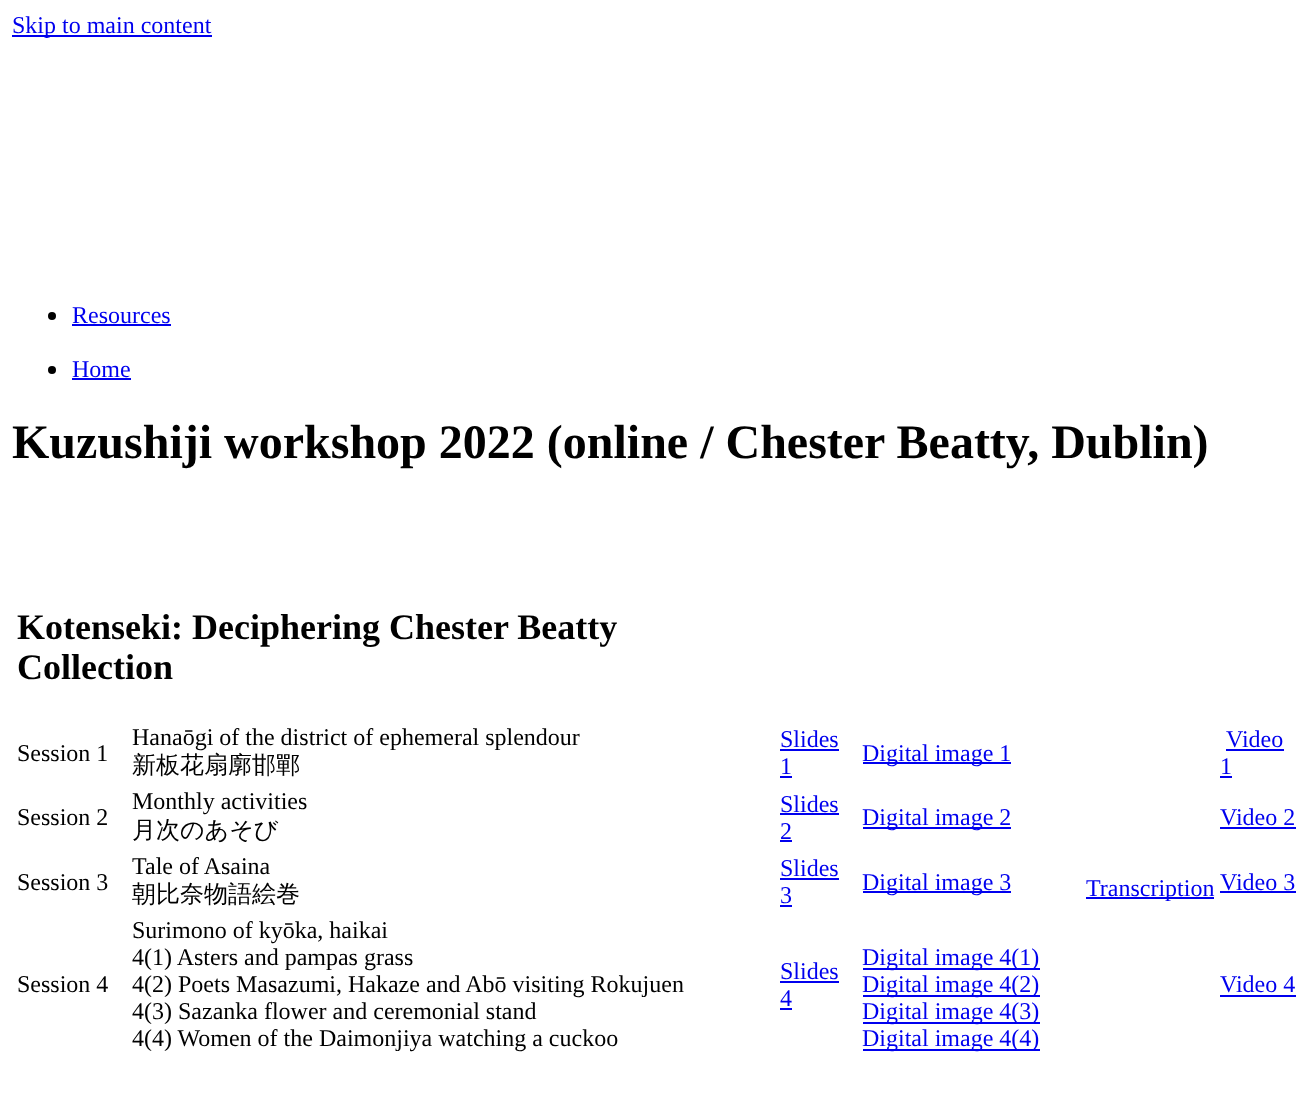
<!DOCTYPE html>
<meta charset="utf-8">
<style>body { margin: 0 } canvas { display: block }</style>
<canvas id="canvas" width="1316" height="1093"></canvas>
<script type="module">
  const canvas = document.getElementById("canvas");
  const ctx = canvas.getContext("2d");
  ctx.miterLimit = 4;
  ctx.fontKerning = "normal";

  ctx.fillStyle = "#ffffff";
  ctx.fillRect(0, 0, 1316, 1093);
  ctx.fillStyle = "#0000ee";
  ctx.fillRect(12, 35, 200, 2);
  ctx.font = "24px Liberation Serif";
  ctx.fillText("Skip to main content", 12, 33);
  ctx.fillStyle = "#000000";
  ctx.beginPath();
  ctx.arc(52, 316, 4, 0, Math.PI * 2);
  ctx.fill();
  ctx.fillStyle = "#0000ee";
  ctx.fillText("Resources", 72, 323);
  ctx.fillRect(72, 324, 99, 2);
  ctx.fillStyle = "#000000";
  ctx.beginPath();
  ctx.arc(52, 370, 4, 0, Math.PI * 2);
  ctx.fill();
  ctx.fillStyle = "#0000ee";
  ctx.fillText("Home", 72, 377);
  ctx.fillRect(72, 378, 59, 2);
  ctx.font = "bold 48px Liberation Serif";
  ctx.fillStyle = "#000000";
  ctx.fillText("Kuzushiji workshop 2022 (online / Chester Beatty, Dublin)", 12, 458);
  ctx.font = "bold 36px Liberation Serif";
  ctx.fillText("Kotenseki: Deciphering Chester Beatty", 17, 639);
  ctx.fillText("Collection", 17, 679);
  ctx.font = "24px Liberation Serif";
  ctx.fillText("Session 1", 17, 761);
  ctx.fillText("Hanaōgi of the district of ephemeral splendour", 132, 745);
  ctx.font = "500 24px WenQuanYi Zen Hei";
  ctx.fillText("新板花扇廓邯鄲", 132, 773);
  ctx.font = "24px Liberation Serif";
  ctx.fillStyle = "#0000ee";
  ctx.fillText("Slides", 780, 747);
  ctx.fillRect(780, 749, 59, 2);
  ctx.fillText("1", 780, 774);
  ctx.fillRect(780, 776, 12, 2);
  ctx.fillRect(863, 762, 148, 2);
  ctx.fillText("Digital image 1", 862, 761);
  ctx.fillText("Video", 1226, 747);
  ctx.fillRect(1226, 749, 58, 2);
  ctx.fillText("1", 1220, 774);
  ctx.fillRect(1220, 776, 12, 2);
  ctx.fillRect(1086, 897, 128, 2);
  ctx.fillText("Transcription", 1086, 896);
  ctx.fillStyle = "#000000";
  ctx.fillText("Session 2", 17, 825);
  ctx.fillText("Monthly activities", 132, 809);
  ctx.font = "500 24px WenQuanYi Zen Hei";
  ctx.fillText("月次のあそび", 132, 838);
  ctx.font = "24px Liberation Serif";
  ctx.fillStyle = "#0000ee";
  ctx.fillText("Slides", 780, 812);
  ctx.fillRect(780, 813, 59, 2);
  ctx.fillText("2", 780, 839);
  ctx.fillRect(780, 840, 12, 2);
  ctx.fillRect(863, 827, 148, 2);
  ctx.fillText("Digital image 2", 862, 825);
  ctx.fillText("Video 2", 1220, 825);
  ctx.fillRect(1220, 827, 76, 2);
  ctx.fillStyle = "#000000";
  ctx.fillText("Session 3", 17, 890);
  ctx.fillText("Tale of Asaina", 132, 874);
  ctx.font = "500 24px WenQuanYi Zen Hei";
  ctx.fillText("朝比奈物語絵巻", 132, 902);
  ctx.font = "24px Liberation Serif";
  ctx.fillStyle = "#0000ee";
  ctx.fillText("Slides", 780, 876);
  ctx.fillRect(780, 878, 59, 2);
  ctx.fillText("3", 780, 903);
  ctx.fillRect(780, 905, 12, 2);
  ctx.fillRect(863, 891, 148, 2);
  ctx.fillText("Digital image 3", 862, 890);
  ctx.fillText("Video 3", 1220, 890);
  ctx.fillRect(1220, 891, 76, 2);
  ctx.fillStyle = "#000000";
  ctx.fillText("Session 4", 17, 992);
  ctx.fillText("Surimono of kyōka, haikai", 132, 938);
  ctx.fillText("4(1) Asters and pampas grass", 132, 965);
  ctx.fillText("4(2) Poets Masazumi, Hakaze and Abō visiting Rokujuen", 132, 992);
  ctx.fillText("4(3) Sazanka flower and ceremonial stand", 132, 1019);
  ctx.fillText("4(4) Women of the Daimonjiya watching a cuckoo", 132, 1046);
  ctx.fillStyle = "#0000ee";
  ctx.fillText("Slides", 780, 979);
  ctx.fillRect(780, 981, 59, 2);
  ctx.fillText("4", 780, 1006);
  ctx.fillRect(780, 1008, 12, 2);
  ctx.fillRect(863, 968, 177, 2);
  ctx.fillText("Digital image 4(1)", 862, 965);
  ctx.fillRect(863, 995, 177, 2);
  ctx.fillText("Digital image 4(2)", 862, 992);
  ctx.fillRect(863, 1022, 177, 2);
  ctx.fillText("Digital image 4(3)", 862, 1019);
  ctx.fillRect(863, 1049, 177, 2);
  ctx.fillText("Digital image 4(4)", 862, 1046);
  ctx.fillText("Video 4", 1220, 992);
  ctx.fillRect(1220, 995, 76, 2);
</script>
